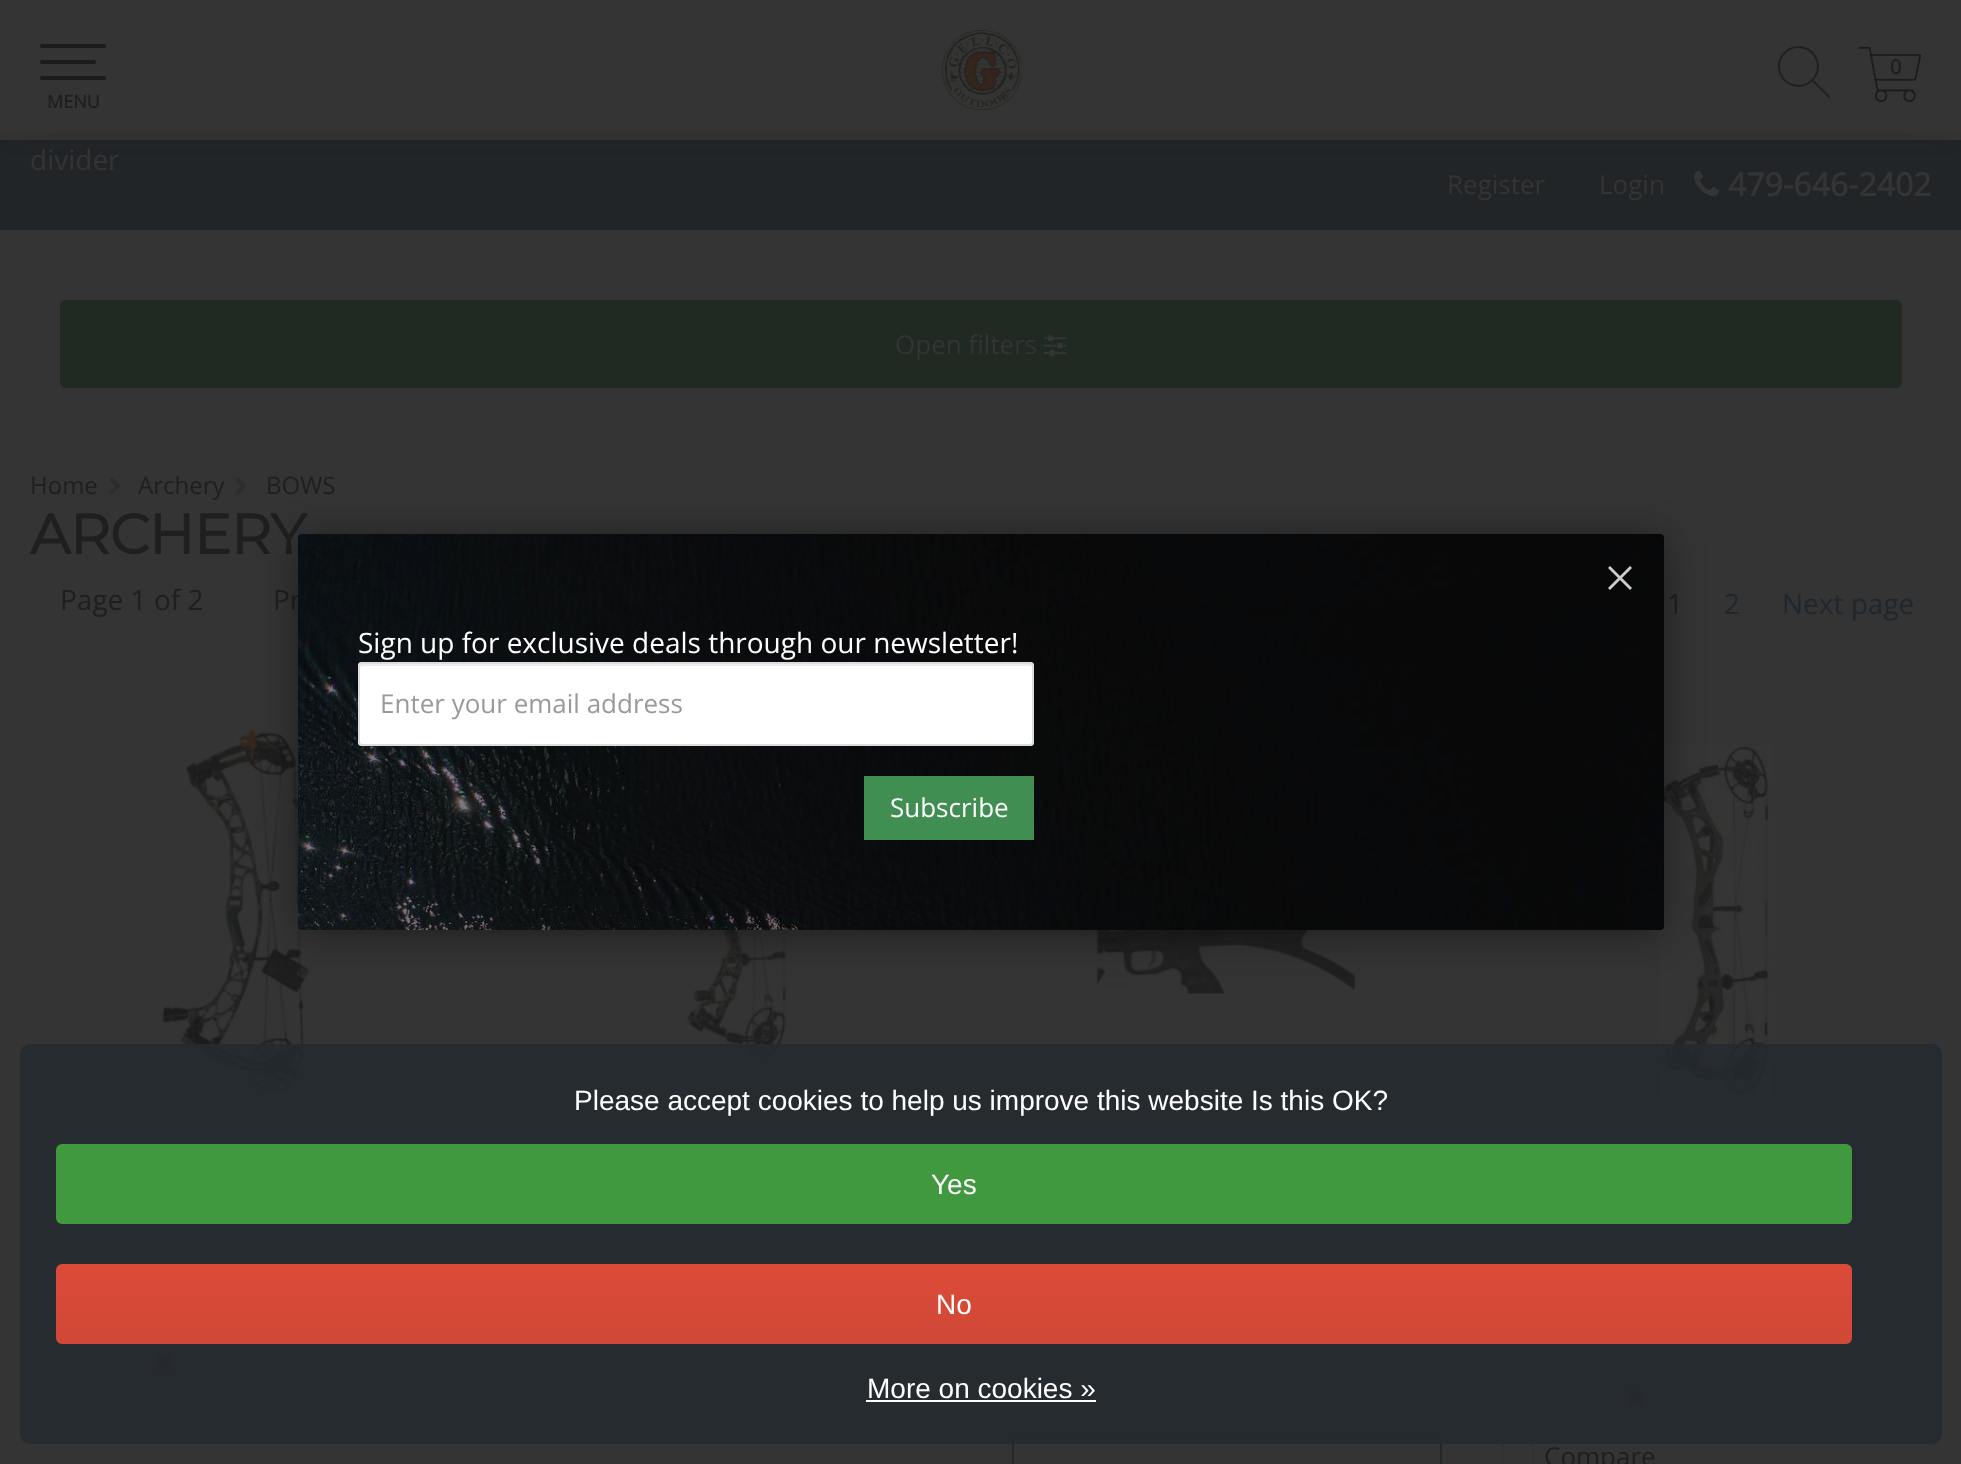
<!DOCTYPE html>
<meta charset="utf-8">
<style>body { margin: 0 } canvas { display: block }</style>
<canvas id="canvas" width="1961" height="1464"></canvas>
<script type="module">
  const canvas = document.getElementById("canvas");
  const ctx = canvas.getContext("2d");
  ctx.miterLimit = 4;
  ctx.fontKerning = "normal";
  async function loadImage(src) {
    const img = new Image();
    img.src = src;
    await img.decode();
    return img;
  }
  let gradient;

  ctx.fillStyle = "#343434";
  ctx.fillRect(0, 0, 1961, 1464);
  ctx.fillStyle = "#222528";
  ctx.fillRect(0, 140, 1961, 90);
  ctx.fillStyle = "#1b1b1b";
  ctx.filter = "blur(20px)";
  ctx.beginPath();
  ctx.rect(12, 12, 1938, 96);
  ctx.fill();
  ctx.filter = "none";
  ctx.fillStyle = "#343434";
  ctx.fillRect(0, 0, 1961, 133);
  ctx.drawImage(await loadImage("img1.png"), 941, 30, 81, 80);
  ctx.drawImage(await loadImage("img2.png"), 1778, 46, 52, 52);
  ctx.drawImage(await loadImage("img3.png"), 1858, 46, 64, 56);
  ctx.font = "bold 20px Open Sans";
  ctx.fillStyle = "#1f1f1f";
  ctx.fillText("0", 1890, 74);
  ctx.fillStyle = "#1c1c1c";
  ctx.beginPath();
  ctx.roundRect(40, 44, 66, 4, 2);
  ctx.fill();
  ctx.beginPath();
  ctx.roundRect(40, 60, 56, 4, 2);
  ctx.fill();
  ctx.beginPath();
  ctx.roundRect(40, 76, 66, 4, 2);
  ctx.fill();
  ctx.font = "bold 18px Open Sans";
  ctx.fillStyle = "#1f1f1f";
  ctx.fillText("MENU", 47, 108);
  ctx.font = "28px Open Sans";
  ctx.fillStyle = "#343434";
  ctx.fillText("divider", 30, 170);
  ctx.font = "26px Open Sans";
  ctx.fillText("Register", 1447, 194);
  ctx.fillText("Login", 1599, 194);
  ctx.drawImage(await loadImage("img4.png"), 1694, 170, 26, 26);
  ctx.font = "bold 32px Open Sans";
  ctx.fillText("479-646-2402", 1728, 196);
  ctx.fillStyle = "#212923";
  ctx.beginPath();
  ctx.roundRect(60, 300, 1842, 88, 6);
  ctx.fill();
  ctx.font = "26px Open Sans";
  ctx.fillStyle = "#343434";
  ctx.fillText("Open filters", 895, 354);
  ctx.drawImage(await loadImage("img5.png"), 1044, 335, 23, 21);
  ctx.font = "24px Open Sans";
  ctx.fillStyle = "#1f1f1f";
  ctx.fillText("Home", 30, 494);
  ctx.drawImage(await loadImage("img6.png"), 109, 477, 12, 18);
  ctx.fillText("Archery", 138, 494);
  ctx.drawImage(await loadImage("img6.png"), 235, 477, 12, 18);
  ctx.fillText("BOWS", 266, 494);
  ctx.letterSpacing = "-0.5px";
  ctx.font = "bold 56px Montserrat";
  ctx.fillText("ARCHERY", 30, 554);
  ctx.letterSpacing = "0px";
  ctx.font = "28px Open Sans";
  ctx.fillText("Page 1 of 2", 60, 610);
  ctx.fillText("Pr", 273, 610);
  ctx.fillText("1", 1667, 614);
  ctx.fillStyle = "#20272d";
  ctx.fillText("2", 1724, 614);
  ctx.fillText("Next page", 1782, 614);
  ctx.drawImage(await loadImage("img7.png"), 162, 729, 148, 365);
  ctx.drawImage(await loadImage("img8.png"), 150, 1254, 26, 10);
  ctx.drawImage(await loadImage("img8.png"), 184, 1254, 26, 10);
  ctx.drawImage(await loadImage("img8.png"), 218, 1254, 26, 10);
  ctx.drawImage(await loadImage("img8.png"), 252, 1254, 26, 10);
  ctx.drawImage(await loadImage("img8.png"), 286, 1254, 26, 10);
  ctx.drawImage(await loadImage("img9.png"), 155, 1354, 17, 17);
  ctx.beginPath();
  ctx.roundRect(31, 1405, 30, 30, 3);
  ctx.strokeStyle = "#313131";
  ctx.lineWidth = 2;
  ctx.stroke();
  ctx.drawImage(await loadImage("img10.png"), 686, 930, 100, 129);
  ctx.drawImage(await loadImage("img8.png"), 640, 1254, 26, 10);
  ctx.drawImage(await loadImage("img8.png"), 674, 1254, 26, 10);
  ctx.drawImage(await loadImage("img8.png"), 708, 1254, 26, 10);
  ctx.drawImage(await loadImage("img8.png"), 742, 1254, 26, 10);
  ctx.drawImage(await loadImage("img8.png"), 776, 1254, 26, 10);
  ctx.drawImage(await loadImage("img11.png"), 667, 1353, 22, 17);
  ctx.beginPath();
  ctx.roundRect(521, 1405, 30, 30, 3);
  ctx.stroke();
  ctx.drawImage(await loadImage("img12.png"), 1096, 930, 260, 64);
  ctx.drawImage(await loadImage("img13.png"), 1132, 1224, 26, 20);
  ctx.drawImage(await loadImage("img13.png"), 1166, 1224, 26, 20);
  ctx.drawImage(await loadImage("img13.png"), 1200, 1224, 26, 20);
  ctx.drawImage(await loadImage("img13.png"), 1234, 1224, 26, 20);
  ctx.drawImage(await loadImage("img13.png"), 1268, 1224, 26, 20);
  ctx.beginPath();
  ctx.roundRect(1013, 1369, 30, 30, 3);
  ctx.stroke();
  ctx.beginPath();
  ctx.roundRect(1013, 1439, 428, 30, 3);
  ctx.strokeStyle = "#212923";
  ctx.stroke();
  ctx.drawImage(await loadImage("img14.png"), 1659, 745, 113, 352);
  ctx.drawImage(await loadImage("img9.png"), 1627, 1390, 17, 17);
  ctx.beginPath();
  ctx.roundRect(1503, 1441, 30, 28, 3);
  ctx.strokeStyle = "#313131";
  ctx.stroke();
  ctx.font = "26px Open Sans";
  ctx.fillStyle = "#1f1f1f";
  ctx.fillText("Compare", 1544, 1466);
  ctx.fillStyle = "rgba(36, 42, 48, 0.85)";
  ctx.beginPath();
  ctx.roundRect(20, 1044, 1922, 400, 10);
  ctx.fill();
  ctx.font = "28px Liberation Sans";
  ctx.fillStyle = "#ffffff";
  ctx.fillText("Please accept cookies to help us improve this website Is this OK?", 574, 1110);
  ctx.fillStyle = "#40983f";
  ctx.beginPath();
  ctx.roundRect(56, 1144, 1796, 80, 6);
  ctx.fill();
  ctx.fillStyle = "#ffffff";
  ctx.fillText("Yes", 931, 1194);
  gradient = ctx.createLinearGradient(954, 1264, 954, 1344);
  gradient.addColorStop(0, "#dc4a38");
  gradient.addColorStop(1, "#d14836");
  ctx.fillStyle = gradient;
  ctx.beginPath();
  ctx.roundRect(56, 1264, 1796, 80, 6);
  ctx.fill();
  ctx.fillStyle = "#ffffff";
  ctx.fillText("No", 936, 1314);
  ctx.fillText("More on cookies »", 867, 1398);
  ctx.fillRect(866, 1400, 230, 2);
  ctx.fillStyle = "rgba(0, 0, 0, 0.5)";
  ctx.filter = "blur(20px)";
  ctx.beginPath();
  ctx.rect(302, 542, 1358, 388);
  ctx.fill();
  ctx.filter = "none";
  ctx.drawImage(await loadImage("img16.png"), 298, 534, 1366, 396);
  ctx.beginPath();
  ctx.roundRect(298, 534, 1366, 396, 4);
  ctx.fill();
  ctx.drawImage(await loadImage("img15.png"), 1608, 566, 24, 24);
  ctx.font = "28px Open Sans";
  ctx.fillStyle = "#ffffff";
  ctx.fillText("Sign up for exclusive deals through our newsletter!", 358, 653);
  ctx.beginPath();
  ctx.roundRect(358, 662, 676, 84, 4);
  ctx.fill();
  ctx.fillStyle = "#ececec";
  ctx.beginPath();
  ctx.moveTo(362, 666);
  ctx.lineTo(1030, 666);
  ctx.bezierCurveTo(1031, 666, 1032, 667, 1032, 668);
  ctx.lineTo(1032, 666);
  ctx.bezierCurveTo(1032, 665, 1031, 664, 1030, 664);
  ctx.lineTo(362, 664);
  ctx.bezierCurveTo(361, 664, 360, 665, 360, 666);
  ctx.lineTo(360, 668);
  ctx.bezierCurveTo(360, 667, 361, 666, 362, 666);
  ctx.closePath();
  ctx.fill();
  ctx.beginPath();
  ctx.roundRect(359, 663, 674, 82, 3);
  ctx.strokeStyle = "#dddddd";
  ctx.stroke();
  ctx.font = "26px Open Sans";
  ctx.fillStyle = "#999999";
  ctx.fillText("Enter your email address", 380, 713);
  ctx.fillStyle = "#408e51";
  ctx.fillRect(864, 776, 170, 64);
  ctx.fillStyle = "#ffffff";
  ctx.fillText("Subscribe", 890, 817);
</script>
